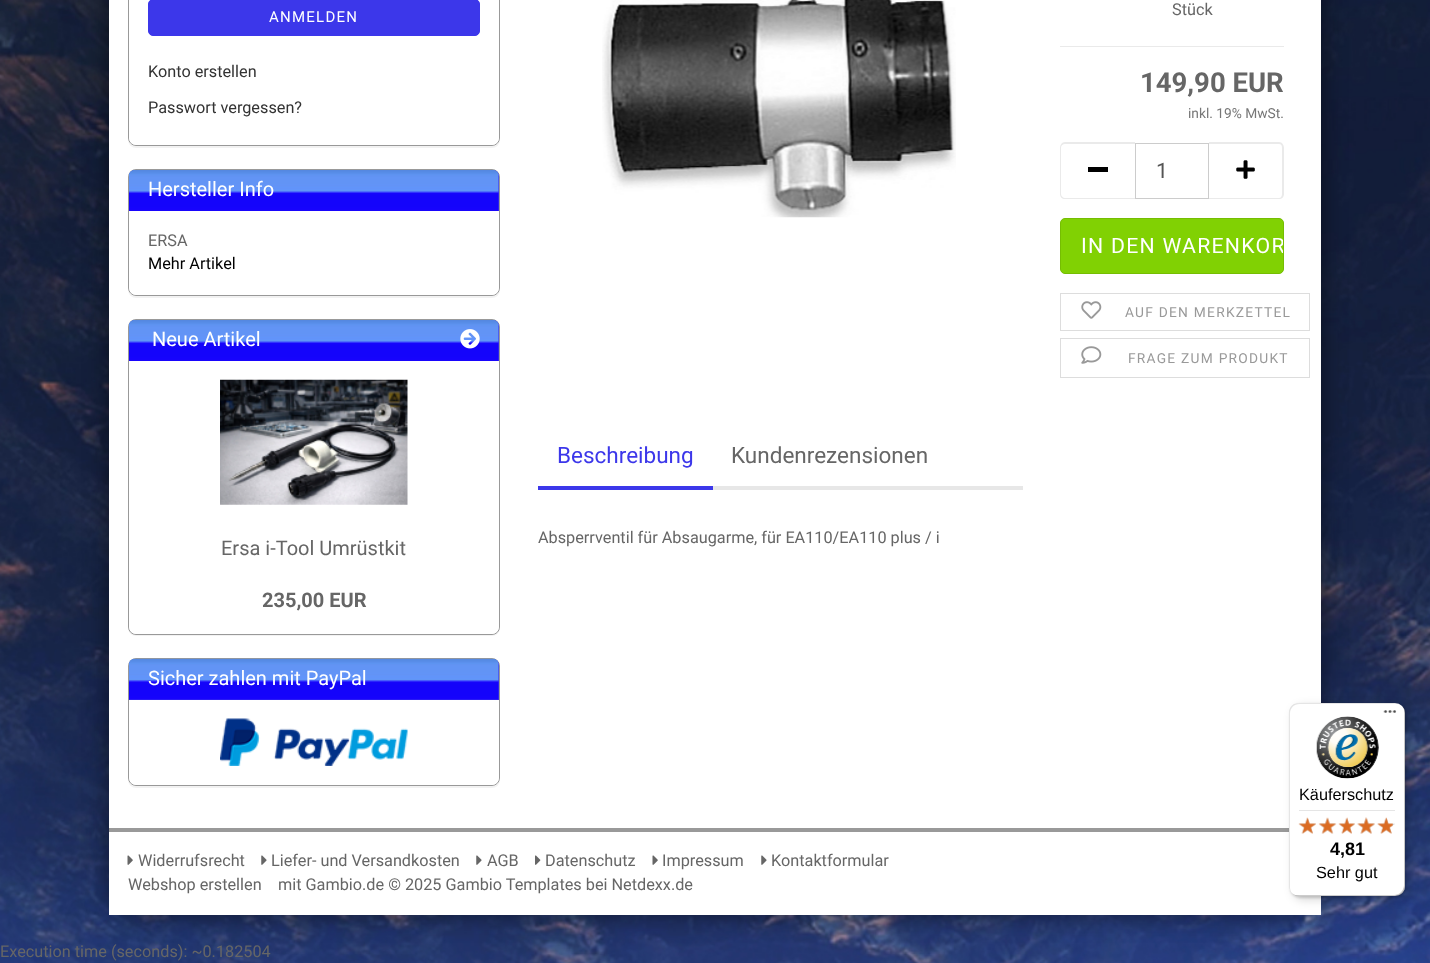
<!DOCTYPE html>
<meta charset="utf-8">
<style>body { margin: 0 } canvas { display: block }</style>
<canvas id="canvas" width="1430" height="963"></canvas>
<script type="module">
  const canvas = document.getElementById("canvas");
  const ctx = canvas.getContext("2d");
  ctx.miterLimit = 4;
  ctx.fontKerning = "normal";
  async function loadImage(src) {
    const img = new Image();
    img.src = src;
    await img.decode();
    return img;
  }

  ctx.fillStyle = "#ffffff";
  ctx.fillRect(0, 0, 1430, 963);
  ctx.drawImage(await loadImage("img1.png"), 0, 0, 1430, 963);
  ctx.fillStyle = "rgba(0, 0, 0, 0.5)";
  ctx.filter = "blur(12.5px)";
  ctx.beginPath();
  ctx.roundRect(109, -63, 1212, 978, 25);
  ctx.fill();
  ctx.filter = "none";
  ctx.fillStyle = "#ffffff";
  ctx.fillRect(109, 0, 1212, 915);
  ctx.save();
  ctx.beginPath();
  ctx.moveTo(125, 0);
  ctx.lineTo(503, 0);
  ctx.lineTo(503, 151);
  ctx.lineTo(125, 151);
  ctx.closePath();
  ctx.moveTo(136, -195);
  ctx.lineTo(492, -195);
  ctx.bezierCurveTo(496.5, -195, 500, -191.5, 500, -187);
  ctx.lineTo(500, 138);
  ctx.bezierCurveTo(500, 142.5, 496.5, 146, 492, 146);
  ctx.lineTo(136, 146);
  ctx.bezierCurveTo(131.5, 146, 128, 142.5, 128, 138);
  ctx.lineTo(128, -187);
  ctx.bezierCurveTo(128, -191.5, 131.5, -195, 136, -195);
  ctx.closePath();
  ctx.clip("evenodd");
  ctx.fillStyle = "rgba(0, 0, 0, 0.05)";
  ctx.filter = "blur(0.5px)";
  ctx.beginPath();
  ctx.roundRect(128, -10, 372, 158, 8);
  ctx.fill();
  ctx.filter = "none";
  ctx.restore();
  ctx.beginPath();
  ctx.roundRect(128.5, -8.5, 371, 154, 7.5);
  ctx.strokeStyle = "#999999";
  ctx.stroke();
  ctx.beginPath();
  ctx.moveTo(129, -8);
  ctx.lineTo(499, -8);
  ctx.lineTo(499, 137);
  ctx.bezierCurveTo(499, 141.5, 495.5, 145, 491, 145);
  ctx.lineTo(137, 145);
  ctx.bezierCurveTo(132.5, 145, 129, 141.5, 129, 137);
  ctx.closePath();
  ctx.fill();
  ctx.fillStyle = "#3c37ea";
  ctx.beginPath();
  ctx.roundRect(148.5, -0.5, 331, 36, 4.5);
  ctx.fill();
  ctx.strokeStyle = "#3c37ea";
  ctx.stroke();
  ctx.letterSpacing = "1.25px";
  ctx.font = "15px Roboto";
  ctx.fillStyle = "#ffffff";
  ctx.fillText("ANMELDEN", 269, 22);
  ctx.letterSpacing = "0px";
  ctx.font = "16.25px Roboto";
  ctx.fillStyle = "#333333";
  ctx.fillText("Konto erstellen", 148, 77);
  ctx.fillText("Passwort vergessen?", 148, 113);
  ctx.save();
  ctx.beginPath();
  ctx.moveTo(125, 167);
  ctx.lineTo(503, 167);
  ctx.lineTo(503, 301);
  ctx.lineTo(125, 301);
  ctx.closePath();
  ctx.moveTo(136, 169);
  ctx.lineTo(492, 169);
  ctx.bezierCurveTo(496.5, 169, 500, 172.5, 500, 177);
  ctx.lineTo(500, 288);
  ctx.bezierCurveTo(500, 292.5, 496.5, 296, 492, 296);
  ctx.lineTo(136, 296);
  ctx.bezierCurveTo(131.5, 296, 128, 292.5, 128, 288);
  ctx.lineTo(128, 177);
  ctx.bezierCurveTo(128, 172.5, 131.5, 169, 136, 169);
  ctx.closePath();
  ctx.clip("evenodd");
  ctx.fillStyle = "rgba(0, 0, 0, 0.05)";
  ctx.filter = "blur(0.5px)";
  ctx.beginPath();
  ctx.roundRect(128, 170, 372, 128, 8);
  ctx.fill();
  ctx.filter = "none";
  ctx.restore();
  ctx.beginPath();
  ctx.roundRect(128.5, 169.5, 371, 126, 7.5);
  ctx.strokeStyle = "#999999";
  ctx.stroke();
  ctx.fillStyle = "#3c37ea";
  ctx.beginPath();
  ctx.roundRect(129, 170, 370, 41, [6, 6, 0, 0]);
  ctx.fill();
  ctx.drawImage(await loadImage("img2.png"), 129, 170, 370, 41);
  ctx.font = "20px Roboto";
  ctx.fillStyle = "#ffffff";
  ctx.fillText("Hersteller Info", 148, 196);
  ctx.beginPath();
  ctx.roundRect(129, 211, 370, 84, [0, 0, 8, 8]);
  ctx.fill();
  ctx.font = "16.25px Roboto";
  ctx.fillStyle = "#666666";
  ctx.fillText("ERSA", 148, 246);
  ctx.fillStyle = "#000000";
  ctx.fillText("Mehr Artikel", 148, 269);
  ctx.fillStyle = "rgba(0, 0, 0, 0.05)";
  ctx.filter = "blur(0.5px)";
  ctx.beginPath();
  ctx.roundRect(128, 320, 372, 316, 8);
  ctx.fill();
  ctx.filter = "none";
  ctx.fillStyle = "#ffffff";
  ctx.beginPath();
  ctx.roundRect(128.5, 319.5, 371, 315, 7.5);
  ctx.fill();
  ctx.stroke();
  ctx.fillStyle = "#3c37ea";
  ctx.beginPath();
  ctx.roundRect(129, 320, 370, 41, [6, 6, 0, 0]);
  ctx.fill();
  ctx.drawImage(await loadImage("img2.png"), 129, 320, 370, 41);
  ctx.font = "20px Roboto";
  ctx.fillStyle = "#ffffff";
  ctx.fillText("Neue Artikel", 152, 346);
  ctx.drawImage(await loadImage("img3.png"), 460, 329, 20, 20);
  ctx.beginPath();
  ctx.roundRect(129, 361, 370, 273, [0, 0, 8, 8]);
  ctx.fill();
  ctx.drawImage(await loadImage("img4.png"), 220, 379, 188, 126);
  ctx.fillStyle = "#666666";
  ctx.fillText("Ersa i-Tool Umrüstkit", 221, 555);
  ctx.font = "bold 20px Roboto";
  ctx.fillText("235,00 EUR", 262, 607);
  ctx.save();
  ctx.beginPath();
  ctx.moveTo(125, 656);
  ctx.lineTo(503, 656);
  ctx.lineTo(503, 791);
  ctx.lineTo(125, 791);
  ctx.closePath();
  ctx.moveTo(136, 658);
  ctx.lineTo(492, 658);
  ctx.bezierCurveTo(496.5, 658, 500, 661.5, 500, 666);
  ctx.lineTo(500, 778);
  ctx.bezierCurveTo(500, 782.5, 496.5, 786, 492, 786);
  ctx.lineTo(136, 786);
  ctx.bezierCurveTo(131.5, 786, 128, 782.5, 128, 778);
  ctx.lineTo(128, 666);
  ctx.bezierCurveTo(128, 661.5, 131.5, 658, 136, 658);
  ctx.closePath();
  ctx.clip("evenodd");
  ctx.fillStyle = "rgba(0, 0, 0, 0.05)";
  ctx.filter = "blur(0.5px)";
  ctx.beginPath();
  ctx.roundRect(128, 659, 372, 129, 8);
  ctx.fill();
  ctx.filter = "none";
  ctx.restore();
  ctx.beginPath();
  ctx.roundRect(128.5, 658.5, 371, 127, 7.5);
  ctx.stroke();
  ctx.fillStyle = "#3c37ea";
  ctx.beginPath();
  ctx.roundRect(129, 659, 370, 41, [6, 6, 0, 0]);
  ctx.fill();
  ctx.drawImage(await loadImage("img5.png"), 129, 658, 370, 42);
  ctx.font = "20px Roboto";
  ctx.fillStyle = "#ffffff";
  ctx.fillText("Sicher zahlen mit PayPal", 148, 685);
  ctx.beginPath();
  ctx.roundRect(129, 700, 370, 85, [0, 0, 8, 8]);
  ctx.fill();
  ctx.drawImage(await loadImage("img6.png"), 220, 718, 188, 48);
  ctx.drawImage(await loadImage("img7.png"), 602, 0, 354, 218);
  ctx.fillStyle = "#eaeaea";
  ctx.fillRect(1060, 46, 224, 1);
  ctx.font = "16.25px Roboto";
  ctx.fillStyle = "#666666";
  ctx.fillText("Stück", 1172, 15);
  ctx.font = "bold 27.5px Roboto";
  ctx.fillText("149,90 EUR", 1140, 92);
  ctx.font = "13.75px Roboto";
  ctx.fillStyle = "#777777";
  ctx.fillText("inkl. 19% MwSt.", 1188, 118);
  ctx.fillStyle = "#eaeaea";
  ctx.beginPath();
  ctx.moveTo(1065, 142);
  ctx.lineTo(1135, 142);
  ctx.lineTo(1135, 199);
  ctx.lineTo(1065, 199);
  ctx.bezierCurveTo(1062, 199, 1060, 197, 1060, 194);
  ctx.lineTo(1060, 148);
  ctx.bezierCurveTo(1060, 145, 1062, 142, 1065, 142);
  ctx.closePath();
  ctx.moveTo(1065, 144);
  ctx.lineTo(1135, 144);
  ctx.lineTo(1135, 198);
  ctx.lineTo(1065, 198);
  ctx.bezierCurveTo(1063, 198, 1061, 196, 1061, 194);
  ctx.lineTo(1061, 148);
  ctx.bezierCurveTo(1061, 145, 1063, 144, 1065, 144);
  ctx.closePath();
  ctx.fill("evenodd");
  ctx.fillStyle = "#000000";
  ctx.fillRect(1088, 167, 20, 5);
  ctx.strokeStyle = "#cccccc";
  ctx.strokeRect(1135.5, 143.5, 73, 55);
  ctx.font = "21.25px Roboto";
  ctx.fillStyle = "#555555";
  ctx.fillText("1", 1156, 178);
  ctx.fillStyle = "#eaeaea";
  ctx.beginPath();
  ctx.moveTo(1209, 142);
  ctx.lineTo(1279, 142);
  ctx.bezierCurveTo(1282, 142, 1284, 145, 1284, 148);
  ctx.lineTo(1284, 194);
  ctx.bezierCurveTo(1284, 197, 1282, 199, 1279, 199);
  ctx.lineTo(1209, 199);
  ctx.closePath();
  ctx.moveTo(1209, 144);
  ctx.lineTo(1279, 144);
  ctx.bezierCurveTo(1281, 144, 1282, 145, 1282, 148);
  ctx.lineTo(1282, 194);
  ctx.bezierCurveTo(1282, 196, 1281, 198, 1279, 198);
  ctx.lineTo(1209, 198);
  ctx.closePath();
  ctx.fill("evenodd");
  ctx.drawImage(await loadImage("img8.png"), 1236, 160, 19, 19);
  ctx.fillStyle = "#81d103";
  ctx.beginPath();
  ctx.roundRect(1060.5, 218.5, 223, 55, 4.5);
  ctx.fill();
  ctx.strokeStyle = "#75bd02";
  ctx.stroke();
  ctx.save();
  ctx.beginPath();
  ctx.roundRect(1061, 219, 222, 54, 4);
  ctx.clip();
  ctx.letterSpacing = "1.25px";
  ctx.fillStyle = "#ffffff";
  ctx.fillText("IN DEN WARENKOR", 1081, 253);
  ctx.restore();
  ctx.strokeStyle = "#dddddd";
  ctx.strokeRect(1060.5, 293.5, 249, 37);
  ctx.drawImage(await loadImage("img9.png"), 1081, 301, 21, 18);
  ctx.letterSpacing = "1.25px";
  ctx.font = "13.75px Roboto";
  ctx.fillStyle = "#999999";
  ctx.fillText("AUF DEN MERKZETTEL", 1125, 317);
  ctx.strokeRect(1060.5, 338.5, 249, 39);
  ctx.drawImage(await loadImage("img10.png"), 1081, 346, 21, 18);
  ctx.fillText("FRAGE ZUM PRODUKT", 1128, 363);
  ctx.fillStyle = "#e7e7e7";
  ctx.fillRect(713, 486, 310, 4);
  ctx.fillStyle = "#3c37ea";
  ctx.fillRect(538, 486, 175, 4);
  ctx.letterSpacing = "0px";
  ctx.font = "22.5px Roboto";
  ctx.fillText("Beschreibung", 557, 463);
  ctx.fillStyle = "#666666";
  ctx.fillText("Kundenrezensionen", 731, 463);
  ctx.font = "16.25px Roboto";
  ctx.fillText("Absperrventil für Absaugarme, für EA110/EA110 plus / i", 538, 543);
  ctx.fillStyle = "#999999";
  ctx.fillRect(109, 828, 1180, 4);
  ctx.drawImage(await loadImage("img11.png"), 127, 855, 6, 10);
  ctx.fillStyle = "#666666";
  ctx.fillText("Widerrufsrecht", 138, 866);
  ctx.drawImage(await loadImage("img12.png"), 261, 855, 6, 10);
  ctx.fillText("Liefer- und Versandkosten", 271, 866);
  ctx.drawImage(await loadImage("img12.png"), 476, 855, 6, 10);
  ctx.fillText("AGB", 487, 866);
  ctx.drawImage(await loadImage("img13.png"), 535, 855, 6, 10);
  ctx.fillText("Datenschutz", 545, 866);
  ctx.drawImage(await loadImage("img11.png"), 652, 855, 6, 10);
  ctx.fillText("Impressum", 662, 866);
  ctx.drawImage(await loadImage("img12.png"), 761, 855, 6, 10);
  ctx.fillText("Kontaktformular", 771, 866);
  ctx.fillText("Webshop erstellen", 128, 890);
  ctx.fillText("mit Gambio.de © 2025 Gambio Templates bei Netdexx.de", 278, 890);
  ctx.fillStyle = "rgba(0, 0, 0, 0.15)";
  ctx.filter = "blur(5px)";
  ctx.beginPath();
  ctx.roundRect(1293, 706, 116, 194, 10);
  ctx.fill();
  ctx.filter = "none";
  ctx.filter = "blur(1px)";
  ctx.beginPath();
  ctx.roundRect(1290, 704, 116, 194, 10);
  ctx.fill();
  ctx.filter = "none";
  ctx.fillStyle = "#ffffff";
  ctx.beginPath();
  ctx.roundRect(1289, 703, 116, 193, 10);
  ctx.fill();
  ctx.fillStyle = "rgba(0, 0, 0, 0.1)";
  ctx.beginPath();
  ctx.moveTo(1300, 704);
  ctx.lineTo(1396, 704);
  ctx.bezierCurveTo(1398, 704, 1400, 704, 1401, 705);
  ctx.bezierCurveTo(1400, 704, 1397, 703, 1395, 703);
  ctx.lineTo(1299, 703);
  ctx.bezierCurveTo(1293, 703, 1289, 707, 1289, 713);
  ctx.lineTo(1289, 886);
  ctx.bezierCurveTo(1289, 888, 1290, 890, 1291, 892);
  ctx.lineTo(1290, 888);
  ctx.lineTo(1290, 714);
  ctx.bezierCurveTo(1290, 708, 1294, 704, 1300, 704);
  ctx.closePath();
  ctx.fill();
  ctx.fillStyle = "rgba(0, 0, 0, 0.2)";
  ctx.beginPath();
  ctx.moveTo(1293, 894);
  ctx.bezierCurveTo(1294, 895, 1297, 896, 1299, 896);
  ctx.lineTo(1395, 896);
  ctx.bezierCurveTo(1401, 896, 1405, 892, 1405, 886);
  ctx.lineTo(1405, 713);
  ctx.bezierCurveTo(1405, 711, 1404, 709, 1403, 707);
  ctx.bezierCurveTo(1404, 708, 1404, 710, 1404, 711);
  ctx.lineTo(1404, 885);
  ctx.bezierCurveTo(1404, 891, 1399, 895, 1394, 895);
  ctx.lineTo(1298, 895);
  ctx.bezierCurveTo(1296, 895, 1294, 895, 1293, 894);
  ctx.closePath();
  ctx.fill();
  ctx.fillStyle = "rgba(50, 50, 50, 0.2)";
  ctx.beginPath();
  ctx.moveTo(1394, 896);
  ctx.lineTo(1395, 896);
  ctx.bezierCurveTo(1401, 896, 1405, 892, 1405, 886);
  ctx.lineTo(1405, 713);
  ctx.bezierCurveTo(1405, 711, 1404, 708, 1403, 707);
  ctx.bezierCurveTo(1404, 708, 1404, 710, 1404, 712);
  ctx.lineTo(1404, 886);
  ctx.bezierCurveTo(1404, 891, 1400, 896, 1394, 896);
  ctx.closePath();
  ctx.fill();
  ctx.fillStyle = "rgba(255, 255, 255, 0.3)";
  ctx.beginPath();
  ctx.moveTo(1394, 896);
  ctx.lineTo(1395, 896);
  ctx.bezierCurveTo(1401, 896, 1405, 892, 1405, 886);
  ctx.lineTo(1405, 713);
  ctx.bezierCurveTo(1405, 711, 1404, 708, 1403, 707);
  ctx.bezierCurveTo(1404, 708, 1404, 710, 1404, 712);
  ctx.lineTo(1404, 886);
  ctx.bezierCurveTo(1404, 891, 1400, 896, 1394, 896);
  ctx.closePath();
  ctx.fill();
  ctx.drawImage(await loadImage("img14.png"), 1383, 710, 14, 3);
  ctx.drawImage(await loadImage("img15.png"), 1316, 716, 63, 63);
  ctx.font = "16.25px Liberation Sans";
  ctx.fillStyle = "#000000";
  ctx.fillText("Käuferschutz", 1299, 800);
  ctx.fillStyle = "#e5e5e5";
  ctx.fillRect(1299, 810, 96, 1);
  ctx.drawImage(await loadImage("img21.png"), 1299, 818, 17, 16);
  ctx.drawImage(await loadImage("img16.png"), 1298, 817, 18, 17);
  ctx.drawImage(await loadImage("img22.png"), 1319, 818, 17, 16);
  ctx.drawImage(await loadImage("img17.png"), 1318, 817, 19, 17);
  ctx.drawImage(await loadImage("img23.png"), 1339, 818, 16, 16);
  ctx.drawImage(await loadImage("img18.png"), 1338, 817, 17, 17);
  ctx.drawImage(await loadImage("img24.png"), 1357, 817, 18, 17);
  ctx.drawImage(await loadImage("img19.png"), 1357, 817, 18, 17);
  ctx.drawImage(await loadImage("img25.png"), 1377, 818, 18, 16);
  ctx.drawImage(await loadImage("img20.png"), 1377, 817, 16, 17);
  ctx.font = "bold 18px Liberation Sans";
  ctx.fillStyle = "#000000";
  ctx.fillText("4,81", 1330, 855);
  ctx.font = "16.25px Liberation Sans";
  ctx.fillText("Sehr gut", 1316, 878);
  ctx.font = "16.25px Roboto";
  ctx.fillStyle = "#666666";
  ctx.fillText("Execution time (seconds): ~0.182504", 0, 957);
</script>
